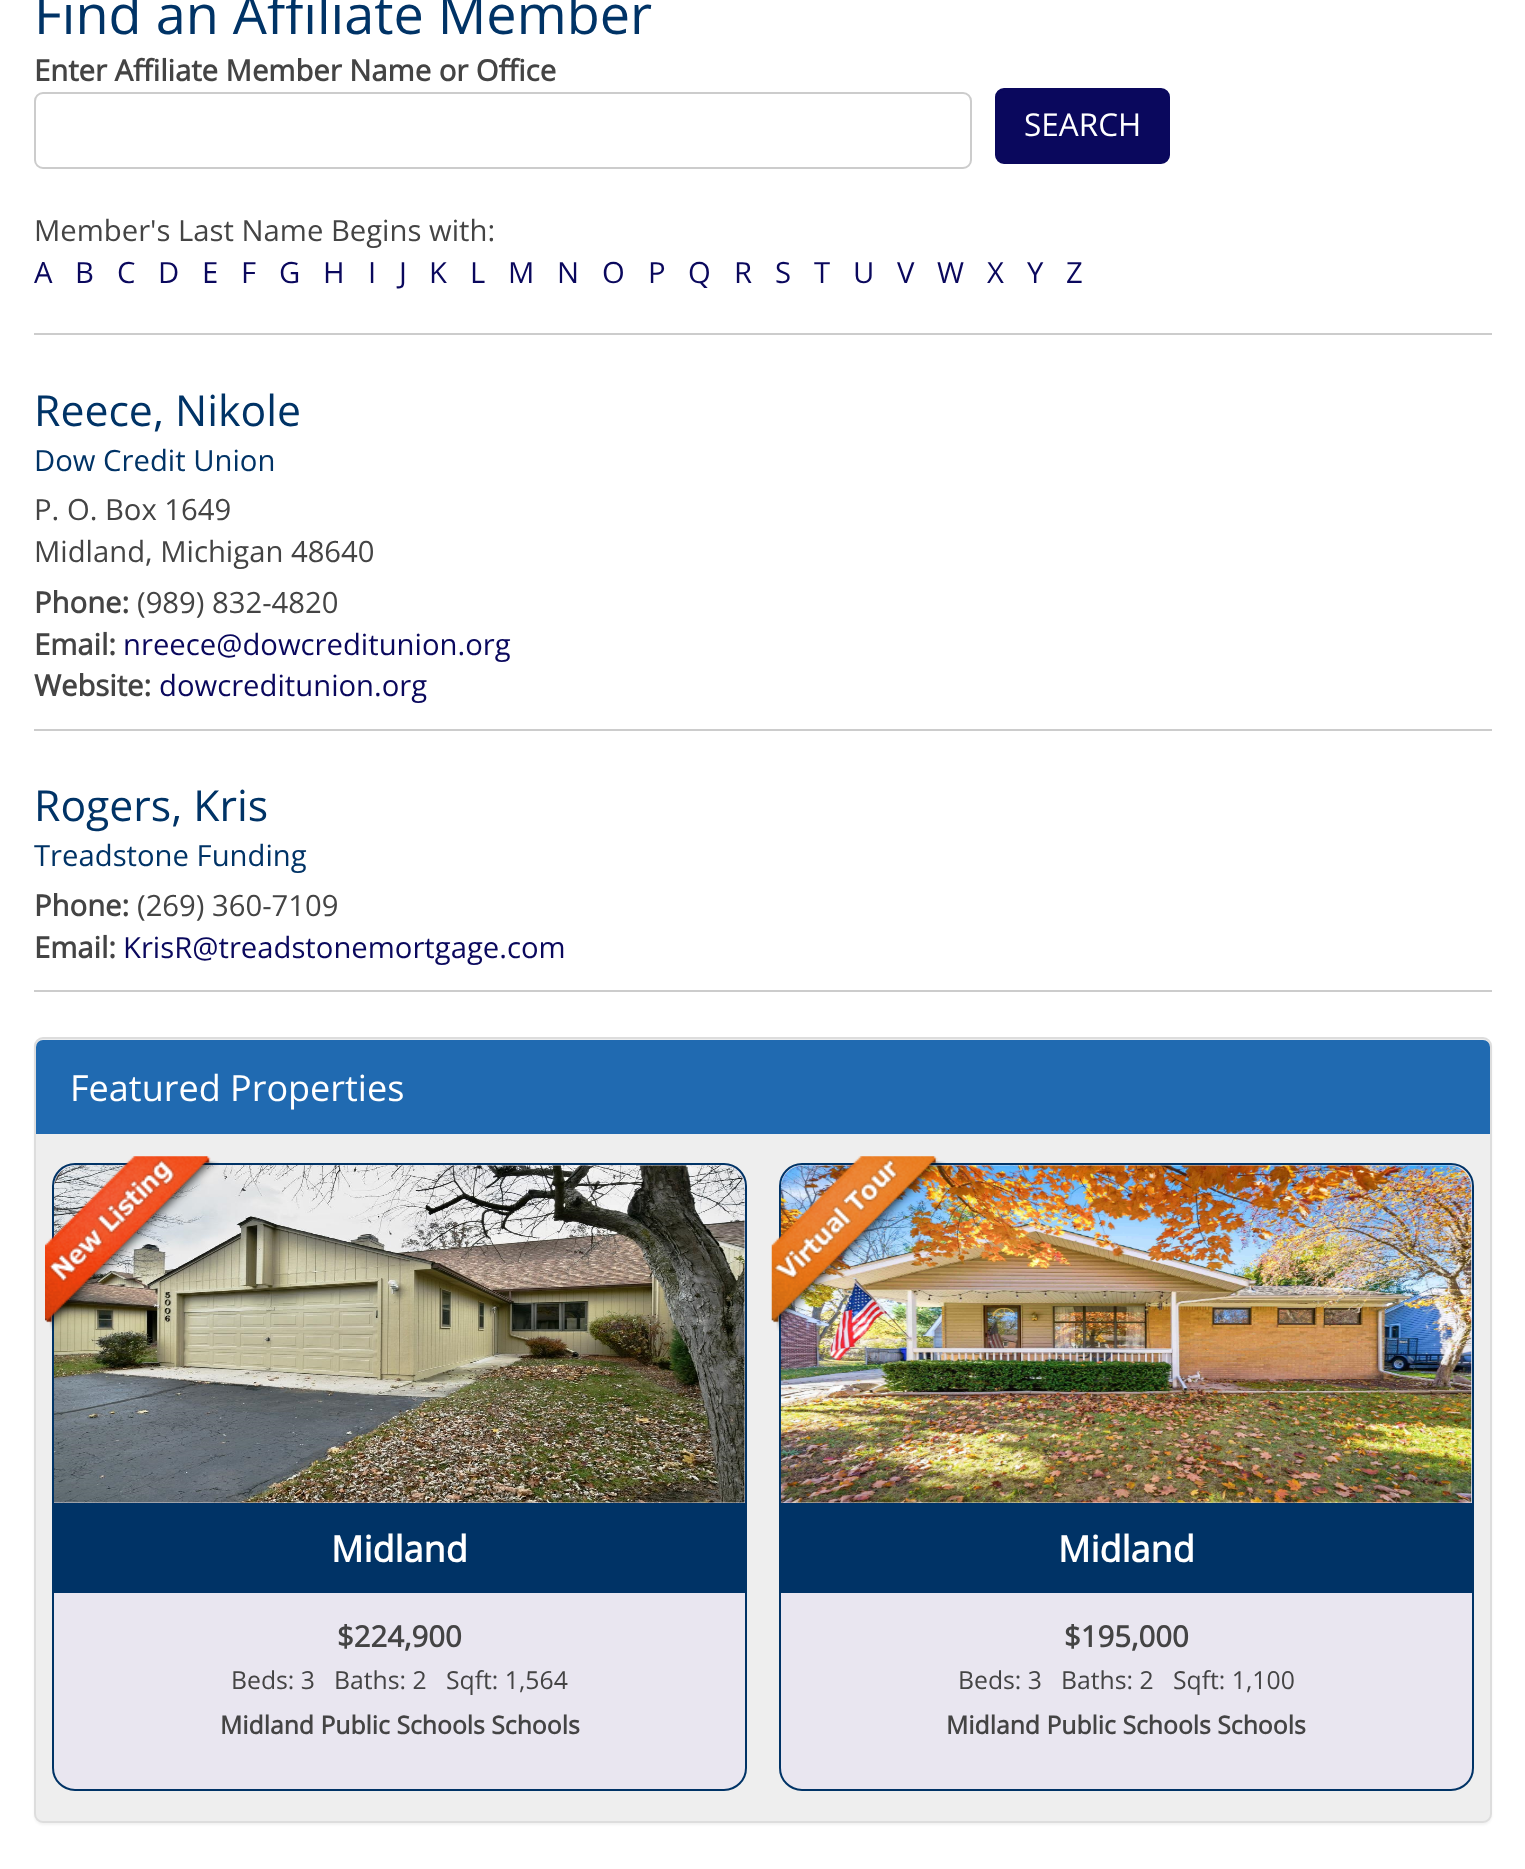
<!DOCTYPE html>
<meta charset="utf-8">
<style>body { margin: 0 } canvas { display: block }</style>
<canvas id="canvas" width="1525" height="1869"></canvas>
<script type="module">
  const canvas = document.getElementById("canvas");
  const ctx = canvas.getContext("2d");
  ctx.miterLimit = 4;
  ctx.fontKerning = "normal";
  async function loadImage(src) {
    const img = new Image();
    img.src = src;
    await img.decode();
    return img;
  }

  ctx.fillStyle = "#ffffff";
  ctx.fillRect(0, 0, 1525, 1869);
  ctx.font = "54px Open Sans";
  ctx.fillStyle = "#003366";
  ctx.fillText("Find an Affiliate Member", 34, 34);
  ctx.font = "bold 29.25px Open Sans";
  ctx.fillStyle = "#444444";
  ctx.fillText("Enter Affiliate Member Name or Office", 34, 81);
  ctx.beginPath();
  ctx.roundRect(35, 93, 936, 75, 8);
  ctx.strokeStyle = "#cccccc";
  ctx.lineWidth = 2;
  ctx.stroke();
  ctx.fillStyle = "#0a085d";
  ctx.beginPath();
  ctx.roundRect(996, 89, 173, 74, 8);
  ctx.fill();
  ctx.strokeStyle = "#0a085d";
  ctx.stroke();
  ctx.font = "31.5px Open Sans";
  ctx.fillStyle = "#ffffff";
  ctx.fillText("SEARCH", 1024, 136);
  ctx.font = "29.25px Open Sans";
  ctx.fillStyle = "#444444";
  ctx.fillText("Member's Last Name Begins with:", 34, 241);
  ctx.fillStyle = "#0a085d";
  ctx.fillText("A", 34, 283);
  ctx.fillText("B", 75, 283);
  ctx.fillText("C", 117, 283);
  ctx.fillText("D", 158, 283);
  ctx.fillText("E", 202, 283);
  ctx.fillText("F", 241, 283);
  ctx.fillText("G", 279, 283);
  ctx.fillText("H", 323, 283);
  ctx.fillText("I", 368, 283);
  ctx.fillText("J", 399, 283);
  ctx.fillText("K", 429, 283);
  ctx.fillText("L", 470, 283);
  ctx.fillText("M", 508, 283);
  ctx.fillText("N", 557, 283);
  ctx.fillText("O", 602, 283);
  ctx.fillText("P", 648, 283);
  ctx.fillText("Q", 688, 283);
  ctx.fillText("R", 734, 283);
  ctx.fillText("S", 775, 283);
  ctx.fillText("T", 814, 283);
  ctx.fillText("U", 853, 283);
  ctx.fillText("V", 897, 283);
  ctx.fillText("W", 937, 283);
  ctx.fillText("X", 987, 283);
  ctx.fillText("Y", 1027, 283);
  ctx.fillText("Z", 1066, 283);
  ctx.fillStyle = "#cccccc";
  ctx.fillRect(34, 333, 1458, 2);
  ctx.font = "42.75px Open Sans";
  ctx.fillStyle = "#003366";
  ctx.fillText("Reece, Nikole", 34, 426);
  ctx.font = "29.25px Open Sans";
  ctx.fillText("Dow Credit Union", 34, 471);
  ctx.fillStyle = "#444444";
  ctx.fillText("P. O. Box 1649", 34, 520);
  ctx.fillText("Midland, Michigan 48640", 34, 562);
  ctx.font = "bold 29.25px Open Sans";
  ctx.fillText("Phone:", 34, 613);
  ctx.font = "29.25px Open Sans";
  ctx.fillText("(989) 832-4820", 137, 613);
  ctx.font = "bold 29.25px Open Sans";
  ctx.fillText("Email:", 34, 655);
  ctx.font = "29.25px Open Sans";
  ctx.fillStyle = "#0a085d";
  ctx.fillText("nreece@dowcreditunion.org", 123, 655);
  ctx.font = "bold 29.25px Open Sans";
  ctx.fillStyle = "#444444";
  ctx.fillText("Website:", 34, 696);
  ctx.font = "29.25px Open Sans";
  ctx.fillStyle = "#0a085d";
  ctx.fillText("dowcreditunion.org", 159, 696);
  ctx.fillStyle = "#cccccc";
  ctx.fillRect(34, 729, 1458, 2);
  ctx.font = "42.75px Open Sans";
  ctx.fillStyle = "#003366";
  ctx.fillText("Rogers, Kris", 34, 821);
  ctx.font = "29.25px Open Sans";
  ctx.fillText("Treadstone Funding", 34, 866);
  ctx.font = "bold 29.25px Open Sans";
  ctx.fillStyle = "#444444";
  ctx.fillText("Phone:", 34, 916);
  ctx.font = "29.25px Open Sans";
  ctx.fillText("(269) 360-7109", 137, 916);
  ctx.font = "bold 29.25px Open Sans";
  ctx.fillText("Email:", 34, 958);
  ctx.font = "29.25px Open Sans";
  ctx.fillStyle = "#0a085d";
  ctx.fillText("KrisR@treadstonemortgage.com", 123, 958);
  ctx.fillStyle = "#cccccc";
  ctx.fillRect(34, 990, 1458, 2);
  ctx.fillStyle = "rgba(0, 0, 0, 0.05)";
  ctx.filter = "blur(1px)";
  ctx.beginPath();
  ctx.roundRect(34, 1040, 1458, 785, 9);
  ctx.fill();
  ctx.filter = "none";
  ctx.fillStyle = "#eeeeee";
  ctx.beginPath();
  ctx.roundRect(35, 1038, 1456, 784, 8);
  ctx.fill();
  ctx.strokeStyle = "#dddddd";
  ctx.stroke();
  ctx.fillStyle = "#206ab1";
  ctx.beginPath();
  ctx.roundRect(36, 1040, 1454, 94, [7, 7, 0, 0]);
  ctx.fill();
  ctx.font = "36px Open Sans";
  ctx.fillStyle = "#ffffff";
  ctx.fillText("Featured Properties", 70, 1101);
  ctx.fillStyle = "#e9e6f0";
  ctx.beginPath();
  ctx.roundRect(53, 1164, 693, 626, 22);
  ctx.fill();
  ctx.strokeStyle = "#003366";
  ctx.stroke();
  ctx.drawImage(await loadImage("img2.png"), 54, 1165, 691, 338);
  ctx.drawImage(await loadImage("img1.png"), 45, 1156, 174, 175);
  ctx.fillStyle = "#003366";
  ctx.fillRect(54, 1503, 691, 90);
  ctx.font = "bold 36px Open Sans";
  ctx.fillStyle = "#ffffff";
  ctx.fillText("Midland", 331, 1562);
  ctx.font = "bold 29.25px Open Sans";
  ctx.fillStyle = "#444444";
  ctx.fillText("$224,900", 337, 1647);
  ctx.font = "24.75px Open Sans";
  ctx.fillText("Beds: 3", 231, 1689);
  ctx.fillText("Baths: 2", 334, 1689);
  ctx.fillText("Sqft: 1,564", 446, 1689);
  ctx.font = "bold 24.75px Open Sans";
  ctx.fillText("Midland Public Schools Schools", 220, 1734);
  ctx.fillStyle = "#e9e6f0";
  ctx.beginPath();
  ctx.roundRect(780, 1164, 693, 626, 22);
  ctx.fill();
  ctx.stroke();
  ctx.drawImage(await loadImage("img4.png"), 780, 1165, 692, 338);
  ctx.drawImage(await loadImage("img3.png"), 771, 1156, 175, 175);
  ctx.fillStyle = "#003366";
  ctx.fillRect(781, 1503, 691, 90);
  ctx.font = "bold 36px Open Sans";
  ctx.fillStyle = "#ffffff";
  ctx.fillText("Midland", 1058, 1562);
  ctx.font = "bold 29.25px Open Sans";
  ctx.fillStyle = "#444444";
  ctx.fillText("$195,000", 1064, 1647);
  ctx.font = "24.75px Open Sans";
  ctx.fillText("Beds: 3", 958, 1689);
  ctx.fillText("Baths: 2", 1061, 1689);
  ctx.fillText("Sqft: 1,100", 1173, 1689);
  ctx.font = "bold 24.75px Open Sans";
  ctx.fillText("Midland Public Schools Schools", 946, 1734);
</script>
